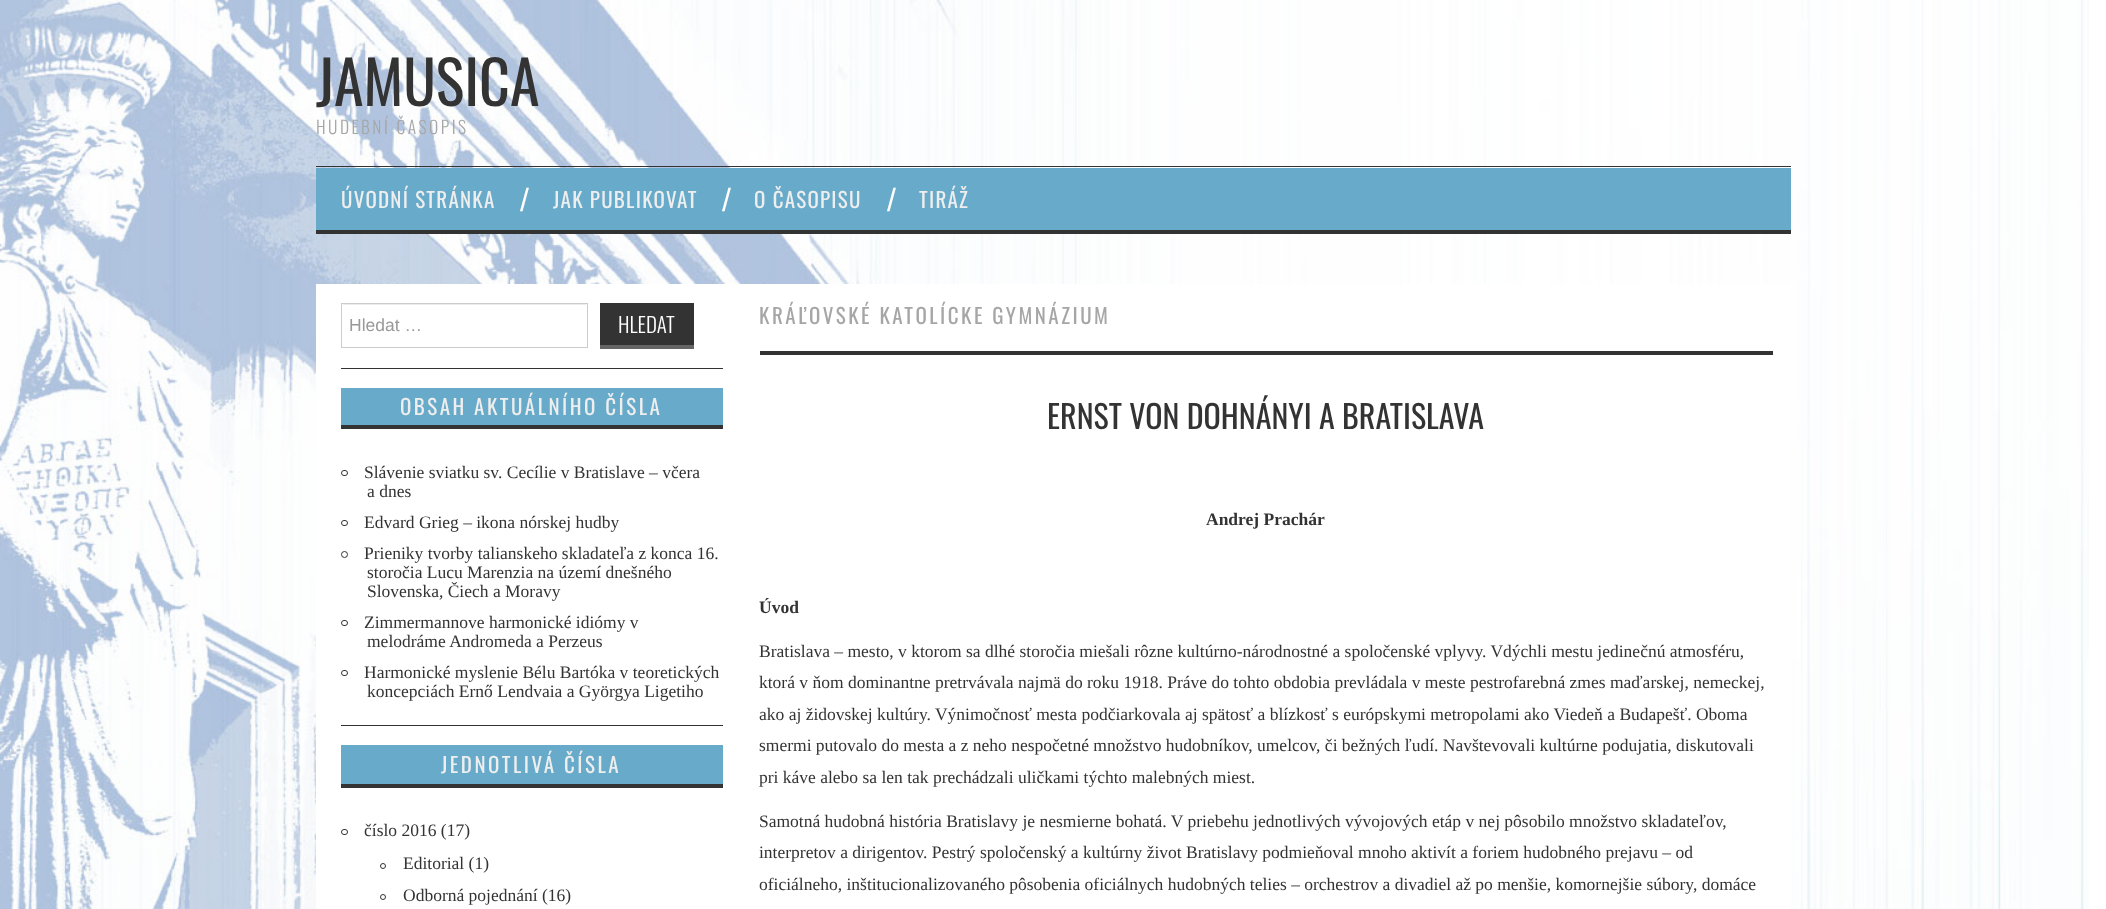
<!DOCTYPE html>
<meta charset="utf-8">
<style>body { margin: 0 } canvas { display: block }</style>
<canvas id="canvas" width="2106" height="909"></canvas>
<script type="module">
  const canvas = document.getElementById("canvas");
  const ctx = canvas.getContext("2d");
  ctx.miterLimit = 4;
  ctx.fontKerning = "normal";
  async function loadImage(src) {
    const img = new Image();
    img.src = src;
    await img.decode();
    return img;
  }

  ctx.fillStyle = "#ffffff";
  ctx.fillRect(0, 0, 2106, 909);
  ctx.drawImage(await loadImage("img1.png"), 0, 0, 2089, 909);
  ctx.font = "60px Oswald";
  ctx.fillStyle = "#333333";
  ctx.fillText("JAMUSICA", 316, 106);
  ctx.letterSpacing = "2.5px";
  ctx.font = "300 17.5px Oswald";
  ctx.fillStyle = "#a6a6a6";
  ctx.fillText("HUDEBNÍ ČASOPIS", 316, 134);
  ctx.fillStyle = "#333333";
  ctx.fillRect(316, 166, 1475, 1);
  ctx.fillRect(316, 230, 1475, 4);
  ctx.fillStyle = "#68aac9";
  ctx.fillRect(316, 168, 1475, 62);
  ctx.letterSpacing = "1.25px";
  ctx.font = "21px Oswald";
  ctx.fillStyle = "#eeeeee";
  ctx.fillText("ÚVODNÍ STRÁNKA", 341, 208);
  ctx.letterSpacing = "0px";
  ctx.font = "32px Liberation Sans";
  ctx.fillStyle = "#ffffff";
  ctx.fillText("/", 520, 211);
  ctx.letterSpacing = "1.25px";
  ctx.font = "21px Oswald";
  ctx.fillStyle = "#eeeeee";
  ctx.fillText("JAK PUBLIKOVAT", 553, 208);
  ctx.letterSpacing = "0px";
  ctx.font = "32px Liberation Sans";
  ctx.fillStyle = "#ffffff";
  ctx.fillText("/", 722, 211);
  ctx.letterSpacing = "1.25px";
  ctx.font = "21px Oswald";
  ctx.fillStyle = "#eeeeee";
  ctx.fillText("O ČASOPISU", 754, 208);
  ctx.letterSpacing = "0px";
  ctx.font = "32px Liberation Sans";
  ctx.fillStyle = "#ffffff";
  ctx.fillText("/", 887, 211);
  ctx.letterSpacing = "1.25px";
  ctx.font = "21px Oswald";
  ctx.fillStyle = "#eeeeee";
  ctx.fillText("TIRÁŽ", 919, 208);
  ctx.fillStyle = "#ffffff";
  ctx.fillRect(316, 284, 1475, 625);
  ctx.fillStyle = "#333333";
  ctx.fillRect(341, 368, 382, 1);
  ctx.fillStyle = "#ececec";
  ctx.fillRect(343, 304, 243, 1);
  ctx.strokeStyle = "#cccccc";
  ctx.strokeRect(341.5, 303.5, 246, 44);
  ctx.letterSpacing = "0px";
  ctx.font = "17.5px Liberation Sans";
  ctx.fillStyle = "#999999";
  ctx.fillText("Hledat …", 349, 331);
  ctx.fillStyle = "#333333";
  ctx.fillRect(600, 303, 94, 42);
  ctx.fillStyle = "#666666";
  ctx.fillRect(600, 345, 94, 4);
  ctx.font = "300 21px Oswald";
  ctx.fillStyle = "#ffffff";
  ctx.fillText("HLEDAT", 618, 333);
  ctx.fillStyle = "#333333";
  ctx.fillRect(341, 725, 382, 1);
  ctx.fillStyle = "#68aac9";
  ctx.fillRect(341, 388, 382, 37);
  ctx.fillStyle = "#333333";
  ctx.fillRect(341, 425, 382, 4);
  ctx.letterSpacing = "2.5px";
  ctx.font = "21px Oswald";
  ctx.fillStyle = "#eeeeee";
  ctx.fillText("OBSAH AKTUÁLNÍHO ČÍSLA", 400, 415);
  ctx.beginPath();
  ctx.roundRect(341.5, 470.5, 6, 5, 2.5);
  ctx.strokeStyle = "#333333";
  ctx.stroke();
  ctx.letterSpacing = "0px";
  ctx.font = "17.5px Liberation Serif";
  ctx.fillStyle = "#333333";
  ctx.fillText("Slávenie sviatku sv. Cecílie v Bratislave – včera", 364, 478);
  ctx.fillText("a dnes", 367, 497);
  ctx.beginPath();
  ctx.roundRect(341.5, 520.5, 6, 5, 2.5);
  ctx.stroke();
  ctx.fillText("Edvard Grieg – ikona nórskej hudby", 364, 528);
  ctx.beginPath();
  ctx.arc(344.5, 554.5, 3, 0, Math.PI * 2);
  ctx.stroke();
  ctx.fillText("Prieniky tvorby talianskeho skladateľa z konca 16.", 364, 559);
  ctx.fillText("storočia Lucu Marenzia na území dnešného", 367, 578);
  ctx.fillText("Slovenska, Čiech a Moravy", 367, 597);
  ctx.beginPath();
  ctx.roundRect(341.5, 620.5, 6, 5, 2.5);
  ctx.stroke();
  ctx.fillText("Zimmermannove harmonické idiómy v", 364, 628);
  ctx.fillText("melodráme Andromeda a Perzeus", 367, 647);
  ctx.beginPath();
  ctx.roundRect(341.5, 670.5, 6, 5, 2.5);
  ctx.stroke();
  ctx.fillText("Harmonické myslenie Bélu Bartóka v teoretických", 364, 678);
  ctx.fillText("koncepciách Ernő Lendvaia a Györgya Ligetiho", 367, 697);
  ctx.fillStyle = "#68aac9";
  ctx.fillRect(341, 745, 382, 39);
  ctx.fillStyle = "#333333";
  ctx.fillRect(341, 784, 382, 4);
  ctx.letterSpacing = "2.5px";
  ctx.font = "21px Oswald";
  ctx.fillStyle = "#eeeeee";
  ctx.fillText("JEDNOTLIVÁ ČÍSLA", 441, 773);
  ctx.beginPath();
  ctx.roundRect(341.5, 829.5, 6, 5, 2.5);
  ctx.stroke();
  ctx.letterSpacing = "0px";
  ctx.font = "17.5px Liberation Serif";
  ctx.fillStyle = "#333333";
  ctx.fillText("číslo 2016 (17)", 364, 836);
  ctx.beginPath();
  ctx.arc(383, 866, 2.5, 0, Math.PI * 2);
  ctx.stroke();
  ctx.fillText("Editorial (1)", 403, 869);
  ctx.beginPath();
  ctx.arc(383, 897, 2.5, 0, Math.PI * 2);
  ctx.stroke();
  ctx.fillText("Odborná pojednání (16)", 403, 901);
  ctx.fillRect(760, 351, 1013, 4);
  ctx.letterSpacing = "2.5px";
  ctx.font = "21px Oswald";
  ctx.fillStyle = "#a6a6a6";
  ctx.fillText("KRÁĽOVSKÉ KATOLÍCKE GYMNÁZIUM", 759, 324);
  ctx.letterSpacing = "0px";
  ctx.font = "32px Oswald";
  ctx.fillStyle = "#333333";
  ctx.fillText("ERNST VON DOHNÁNYI A BRATISLAVA", 1047, 429);
  ctx.font = "bold 17.5px Liberation Serif";
  ctx.fillText("Andrej Prachár", 1206, 525);
  ctx.fillText("Úvod", 759, 613);
  ctx.font = "17.5px Liberation Serif";
  ctx.fillText("Bratislava – mesto, v ktorom sa dlhé storočia miešali rôzne kultúrno-národnostné a spoločenské vplyvy. Vdýchli mestu jedinečnú atmosféru,", 759, 657);
  ctx.fillText("ktorá v ňom dominantne pretrvávala najmä do roku 1918. Práve do tohto obdobia prevládala v meste pestrofarebná zmes maďarskej, nemeckej,", 759, 688);
  ctx.fillText("ako aj židovskej kultúry. Výnimočnosť mesta podčiarkovala aj spätosť a blízkosť s európskymi metropolami ako Viedeň a Budapešť. Oboma", 759, 720);
  ctx.fillText("smermi putovalo do mesta a z neho nespočetné množstvo hudobníkov, umelcov, či bežných ľudí. Navštevovali kultúrne podujatia, diskutovali", 759, 751);
  ctx.fillText("pri káve alebo sa len tak prechádzali uličkami týchto malebných miest.", 759, 783);
  ctx.fillText("Samotná hudobná história Bratislavy je nesmierne bohatá. V priebehu jednotlivých vývojových etáp v nej pôsobilo množstvo skladateľov,", 759, 827);
  ctx.fillText("interpretov a dirigentov. Pestrý spoločenský a kultúrny život Bratislavy podmieňoval mnoho aktivít a foriem hudobného prejavu – od", 759, 858);
  ctx.fillText("oficiálneho, inštitucionalizovaného pôsobenia oficiálnych hudobných telies – orchestrov a divadiel až po menšie, komornejšie súbory, domáce", 759, 890);
</script>
